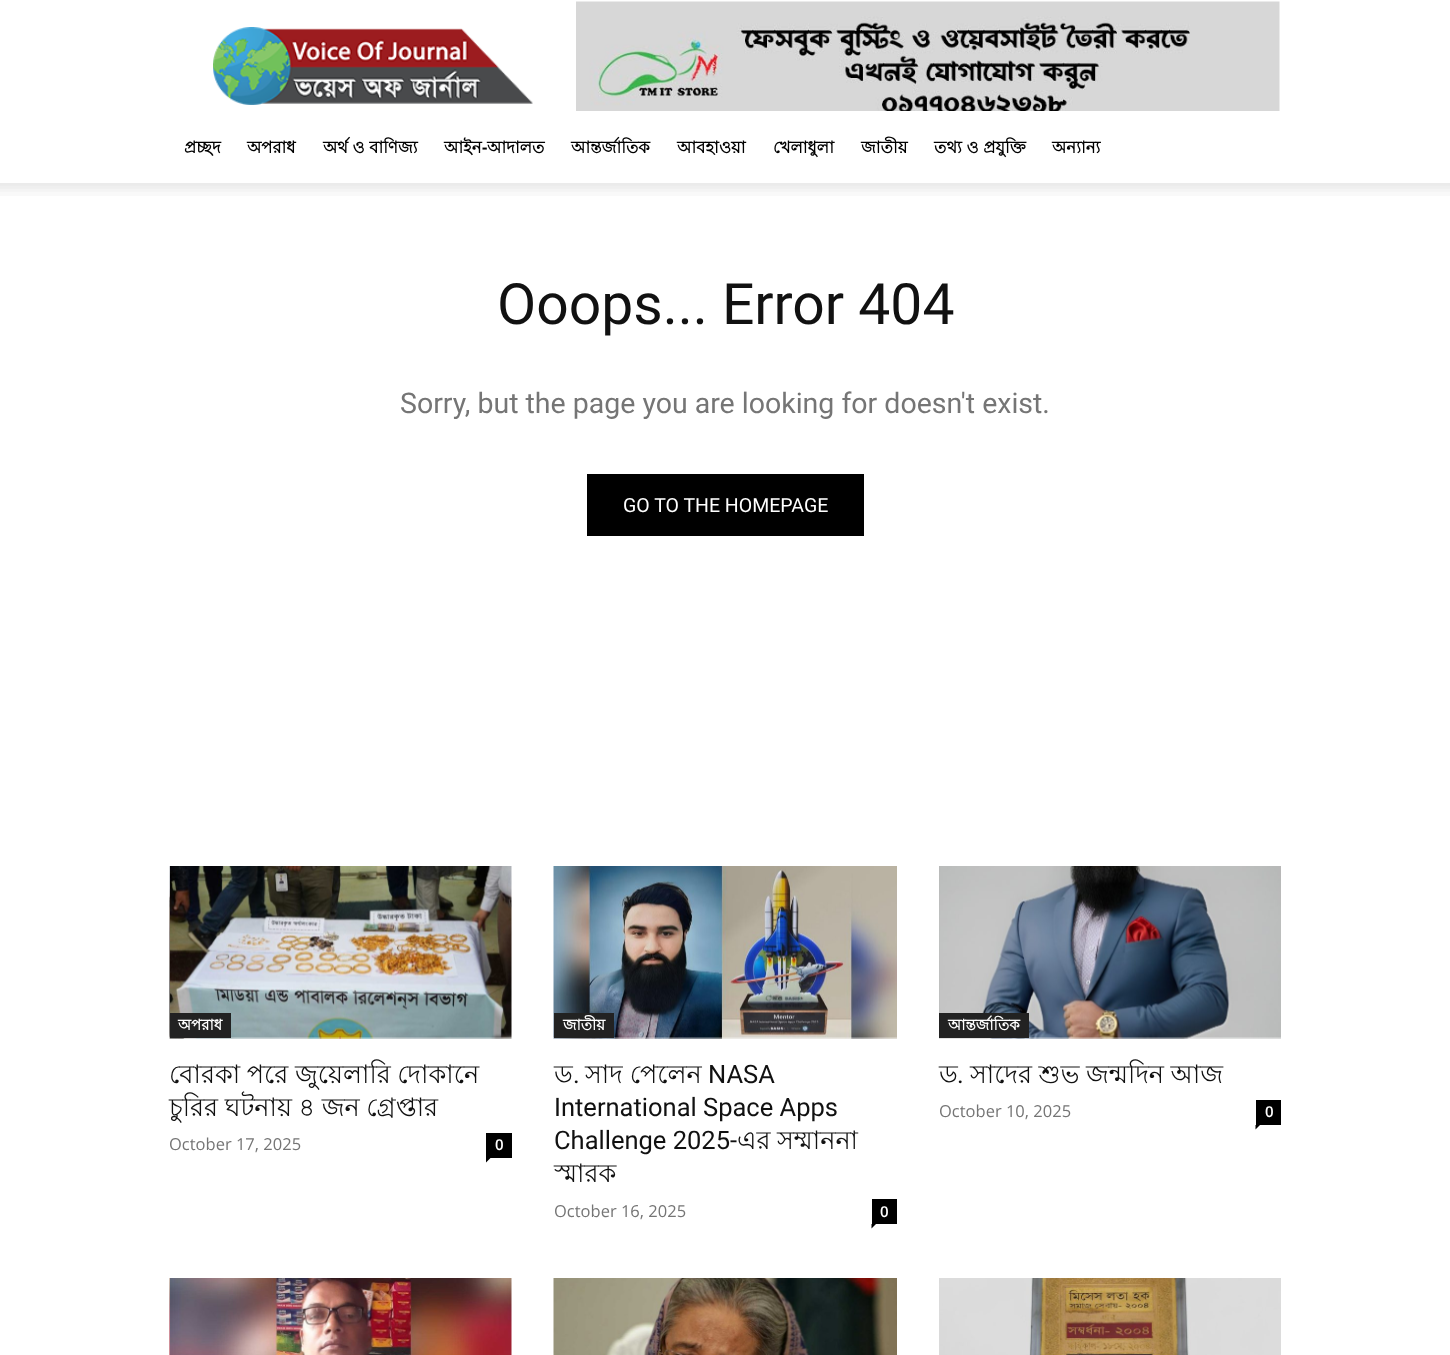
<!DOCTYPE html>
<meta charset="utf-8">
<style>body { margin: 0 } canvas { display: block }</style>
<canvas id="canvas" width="1450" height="1355"></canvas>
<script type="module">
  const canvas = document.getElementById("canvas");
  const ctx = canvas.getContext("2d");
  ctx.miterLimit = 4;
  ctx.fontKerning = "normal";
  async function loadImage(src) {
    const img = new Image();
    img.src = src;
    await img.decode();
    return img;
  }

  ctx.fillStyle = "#ffffff";
  ctx.fillRect(0, 0, 1450, 1355);
  ctx.drawImage(await loadImage("img1.png"), 213, 27, 320, 78);
  ctx.drawImage(await loadImage("img2.png"), 576, 1, 704, 110);
  ctx.font = "bold 16.5px Lohit Bengali";
  ctx.fillStyle = "#000000";
  ctx.fillText("প্রচ্ছদ", 184, 153);
  ctx.fillText("অপরাধ", 247, 153);
  ctx.fillText("অর্থ ও বাণিজ্য", 323, 153);
  ctx.fillText("আইন", 444, 153);
  ctx.font = "bold 16.5px Open Sans";
  ctx.fillText("-", 482, 153);
  ctx.font = "bold 16.5px Lohit Bengali";
  ctx.fillText("আদালত", 487, 153);
  ctx.fillText("আন্তর্জাতিক", 571, 153);
  ctx.fillText("আবহাওয়া", 677, 153);
  ctx.fillText("খেলাধুলা", 773, 153);
  ctx.fillText("জাতীয়", 861, 153);
  ctx.fillText("তথ্য ও প্রযুক্তি", 934, 153);
  ctx.fillText("অন্যান্য", 1052, 153);
  ctx.drawImage(await loadImage("img3.png"), 0, 183, 1450, 13);
  ctx.font = "57px Roboto";
  ctx.fillStyle = "#111111";
  ctx.fillText("Ooops... Error 404", 497, 324);
  ctx.font = "28.5px Roboto";
  ctx.fillStyle = "#757575";
  ctx.fillText("Sorry, but the page you are looking for doesn't exist.", 400, 413);
  ctx.fillStyle = "#000000";
  ctx.fillRect(587, 474, 277, 62);
  ctx.font = "19.5px Roboto";
  ctx.fillStyle = "#ffffff";
  ctx.fillText("GO TO THE HOMEPAGE", 623, 512);
  ctx.drawImage(await loadImage("img4.png"), 169, 866, 343, 173);
  ctx.fillStyle = "#222222";
  ctx.fillRect(170, 1013, 61, 25);
  ctx.font = "bold 15px Lohit Bengali";
  ctx.fillStyle = "#ffffff";
  ctx.fillText("অপরাধ", 178, 1030);
  ctx.wordSpacing = "-0.5px";
  ctx.font = "25.5px Lohit Bengali";
  ctx.fillStyle = "#111111";
  ctx.fillText("বোরকা পরে জুয়েলারি দোকানে", 169, 1083);
  ctx.fillText("চুরির ঘটনায় ৪ জন গ্রেপ্তার", 169, 1116);
  ctx.wordSpacing = "0px";
  ctx.font = "16.5px Open Sans";
  ctx.fillStyle = "#757575";
  ctx.fillText("October 17, 2025", 169, 1150);
  ctx.fillStyle = "#000000";
  ctx.fillRect(486, 1133, 26, 25);
  ctx.font = "600 15px Open Sans";
  ctx.fillStyle = "#ffffff";
  ctx.fillText("0", 495, 1150);
  ctx.fillStyle = "#000000";
  ctx.beginPath();
  ctx.moveTo(486, 1158);
  ctx.lineTo(490.5, 1158);
  ctx.lineTo(486, 1162.5);
  ctx.closePath();
  ctx.fill();
  ctx.drawImage(await loadImage("img5.png"), 553, 866, 344, 173);
  ctx.fillStyle = "#222222";
  ctx.fillRect(554, 1013, 60, 25);
  ctx.font = "bold 15px Lohit Bengali";
  ctx.fillStyle = "#ffffff";
  ctx.fillText("জাতীয়", 563, 1030);
  ctx.font = "25.5px Lohit Bengali";
  ctx.fillStyle = "#111111";
  ctx.fillText("ড", 554, 1083);
  ctx.font = "25.5px Roboto";
  ctx.fillText(".", 573, 1083);
  ctx.font = "25.5px Lohit Bengali";
  ctx.fillText("সাদ পেলেন", 585, 1083);
  ctx.font = "25.5px Roboto";
  ctx.fillText("NASA", 708, 1083);
  ctx.fillText("International Space Apps", 554, 1116);
  ctx.fillText("Challenge 2025-", 554, 1149);
  ctx.font = "25.5px Lohit Bengali";
  ctx.fillText("এর", 737, 1149);
  ctx.fillText("সম্মাননা", 777, 1149);
  ctx.fillText("স্মারক", 554, 1182);
  ctx.font = "16.5px Open Sans";
  ctx.fillStyle = "#757575";
  ctx.fillText("October 16, 2025", 554, 1217);
  ctx.fillStyle = "#000000";
  ctx.fillRect(872, 1199, 25, 25);
  ctx.font = "600 15px Open Sans";
  ctx.fillStyle = "#ffffff";
  ctx.fillText("0", 880, 1217);
  ctx.fillStyle = "#000000";
  ctx.beginPath();
  ctx.moveTo(871.5, 1224);
  ctx.lineTo(876, 1224);
  ctx.lineTo(871.5, 1228.5);
  ctx.closePath();
  ctx.fill();
  ctx.drawImage(await loadImage("img6.png"), 939, 866, 342, 173);
  ctx.fillStyle = "#222222";
  ctx.fillRect(939, 1013, 90, 25);
  ctx.font = "bold 15px Lohit Bengali";
  ctx.fillStyle = "#ffffff";
  ctx.fillText("আন্তর্জাতিক", 948, 1030);
  ctx.font = "25.5px Lohit Bengali";
  ctx.fillStyle = "#111111";
  ctx.fillText("ড", 939, 1083);
  ctx.font = "25.5px Roboto";
  ctx.fillText(".", 957, 1083);
  ctx.wordSpacing = "-0.5px";
  ctx.font = "25.5px Lohit Bengali";
  ctx.fillText("সাদের শুভ জন্মদিন আজ", 970, 1083);
  ctx.wordSpacing = "0px";
  ctx.font = "16.5px Open Sans";
  ctx.fillStyle = "#757575";
  ctx.fillText("October 10, 2025", 939, 1117);
  ctx.fillStyle = "#000000";
  ctx.fillRect(1256, 1100, 25, 25);
  ctx.font = "600 15px Open Sans";
  ctx.fillStyle = "#ffffff";
  ctx.fillText("0", 1265, 1117);
  ctx.fillStyle = "#000000";
  ctx.beginPath();
  ctx.moveTo(1255.5, 1125);
  ctx.lineTo(1260, 1125);
  ctx.lineTo(1255.5, 1129.5);
  ctx.closePath();
  ctx.fill();
  ctx.drawImage(await loadImage("img7.png"), 169, 1278, 343, 77);
  ctx.drawImage(await loadImage("img8.png"), 553, 1278, 344, 77);
  ctx.drawImage(await loadImage("img9.png"), 939, 1278, 342, 77);
</script>
